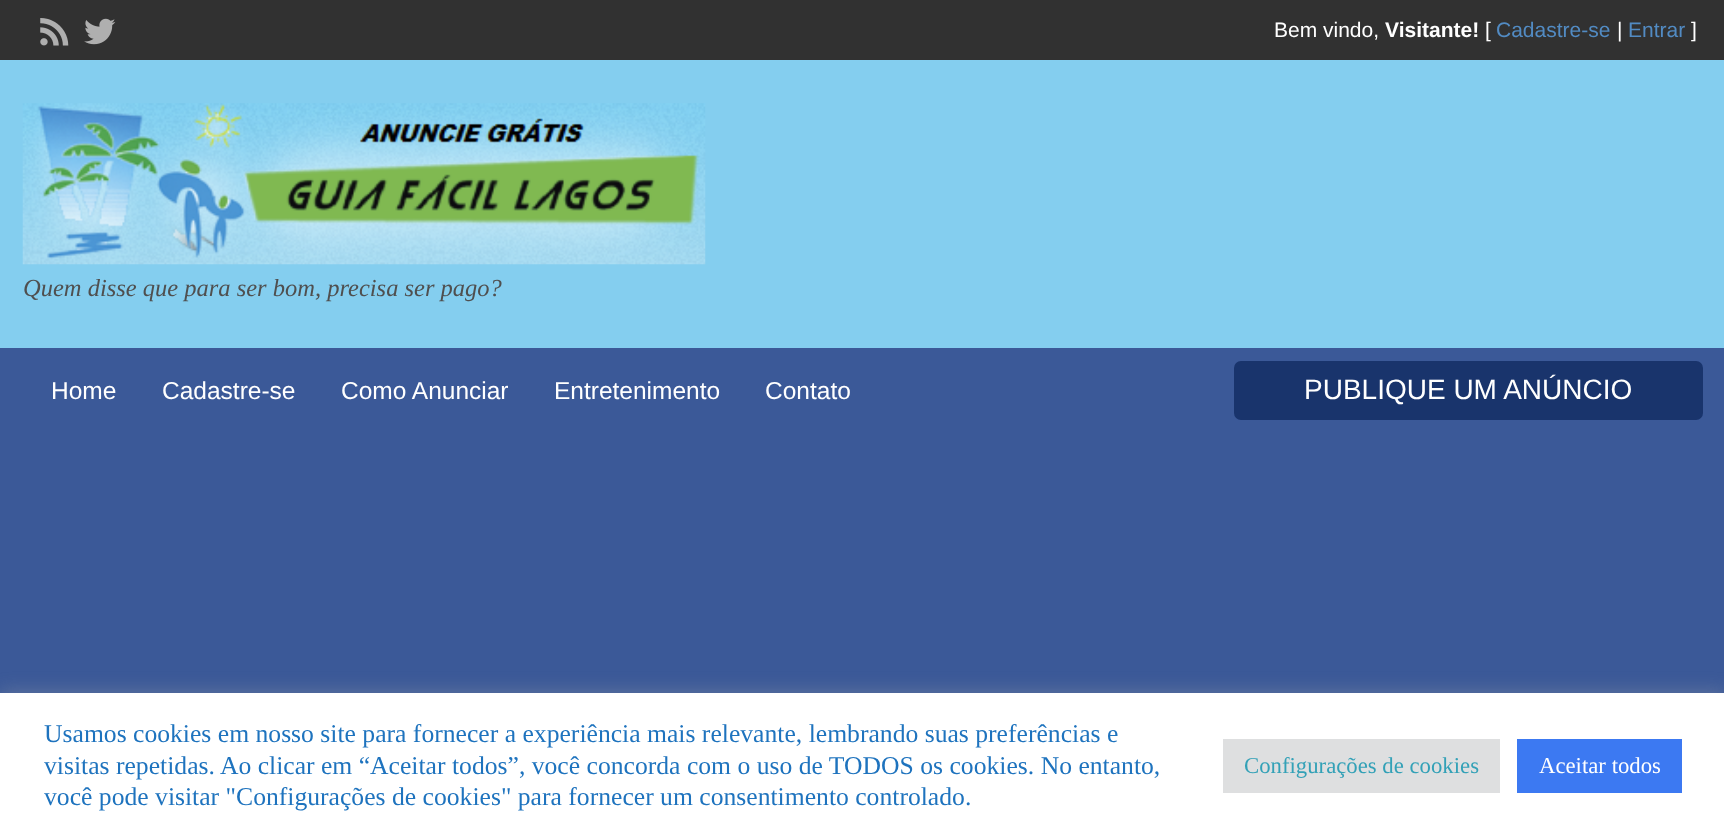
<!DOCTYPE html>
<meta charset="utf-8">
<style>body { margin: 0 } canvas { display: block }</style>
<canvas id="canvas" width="1724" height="836"></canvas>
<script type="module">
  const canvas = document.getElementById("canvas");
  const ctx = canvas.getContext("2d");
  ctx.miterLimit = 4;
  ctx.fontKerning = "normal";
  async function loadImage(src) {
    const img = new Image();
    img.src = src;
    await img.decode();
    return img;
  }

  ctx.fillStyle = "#313131";
  ctx.fillRect(0, 0, 1724, 836);
  ctx.drawImage(await loadImage("img1.png"), 40, 18, 29, 28);
  ctx.drawImage(await loadImage("img2.png"), 84, 18, 32, 27);
  ctx.font = "21px Liberation Sans";
  ctx.fillStyle = "#ffffff";
  ctx.fillText("Bem vindo,", 1274, 37);
  ctx.font = "bold 21px Liberation Sans";
  ctx.fillText("Visitante!", 1385, 37);
  ctx.font = "21px Liberation Sans";
  ctx.fillText("[", 1485, 37);
  ctx.fillStyle = "#528bc3";
  ctx.fillText("Cadastre-se", 1496, 37);
  ctx.fillStyle = "#ffffff";
  ctx.fillText("|", 1617, 37);
  ctx.fillStyle = "#528bc3";
  ctx.fillText("Entrar", 1628, 37);
  ctx.fillStyle = "#ffffff";
  ctx.fillText("]", 1691, 37);
  ctx.fillStyle = "#84ceef";
  ctx.fillRect(0, 60, 1724, 288);
  ctx.drawImage(await loadImage("img3.png"), 22, 103, 684, 162);
  ctx.font = "italic 24.5px Liberation Serif";
  ctx.fillStyle = "#4f4f4f";
  ctx.fillText("Quem disse que para ser bom, precisa ser pago?", 23, 296);
  ctx.fillStyle = "#3b5998";
  ctx.fillRect(0, 348, 1724, 345);
  ctx.font = "24.5px Liberation Sans";
  ctx.fillStyle = "#ffffff";
  ctx.fillText("Home", 51, 399);
  ctx.fillText("Cadastre-se", 162, 399);
  ctx.fillText("Como Anunciar", 341, 399);
  ctx.fillText("Entretenimento", 554, 399);
  ctx.fillText("Contato", 765, 399);
  ctx.fillStyle = "#19346c";
  ctx.beginPath();
  ctx.roundRect(1234, 361, 469, 59, 7);
  ctx.fill();
  ctx.font = "28px Liberation Sans";
  ctx.fillStyle = "#ffffff";
  ctx.fillText("PUBLIQUE UM ANÚNCIO", 1304, 399);
  ctx.fillStyle = "rgba(172, 171, 171, 0.3)";
  ctx.filter = "blur(9px)";
  ctx.beginPath();
  ctx.rect(0, 691, 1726, 144);
  ctx.fill();
  ctx.filter = "none";
  ctx.fillStyle = "#ffffff";
  ctx.fillRect(0, 693, 1724, 143);
  ctx.font = "25.65px Liberation Serif";
  ctx.fillStyle = "#1e73be";
  ctx.fillText("Usamos cookies em nosso site para fornecer a experiência mais relevante, lembrando suas preferências e", 44, 742);
  ctx.fillText("visitas repetidas. Ao clicar em “Aceitar todos”, você concorda com o uso de TODOS os cookies. No entanto,", 44, 774);
  ctx.fillText("você pode visitar \"Configurações de cookies\" para fornecer um consentimento controlado.", 44, 805);
  ctx.fillStyle = "#dedfe0";
  ctx.fillRect(1223, 739, 277, 54);
  ctx.font = "22.75px Liberation Serif";
  ctx.fillStyle = "#33a1b7";
  ctx.fillText("Configurações de cookies", 1244, 773);
  ctx.fillStyle = "#3c79f2";
  ctx.fillRect(1517, 739, 165, 54);
  ctx.fillStyle = "#ffffff";
  ctx.fillText("Aceitar todos", 1539, 773);
</script>
